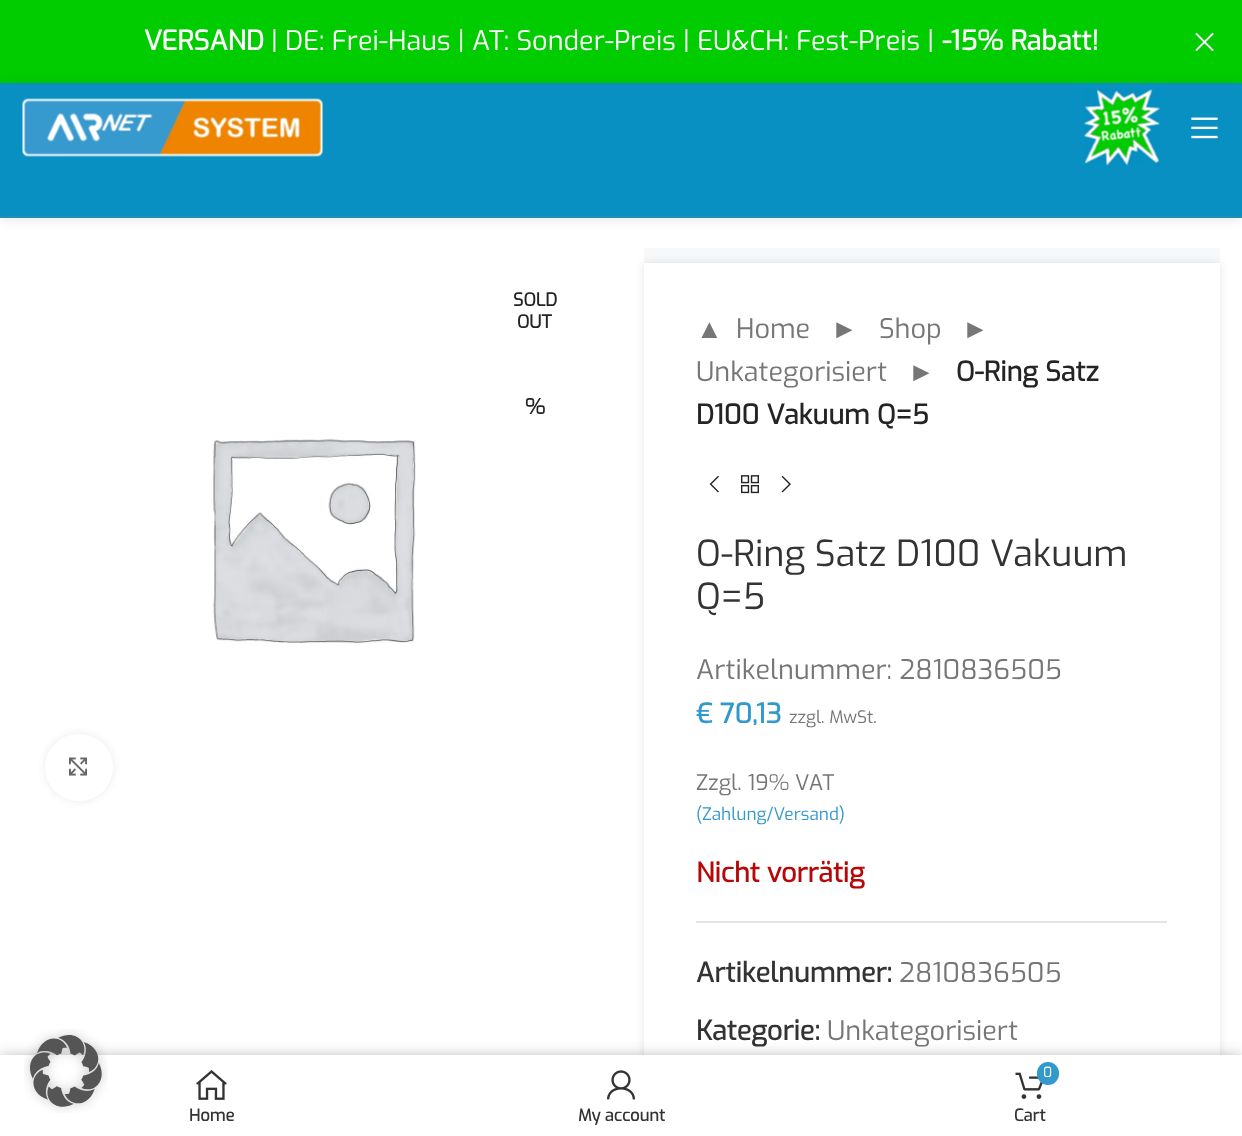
<!DOCTYPE html>
<meta charset="utf-8">
<style>body { margin: 0 } canvas { display: block }</style>
<canvas id="canvas" width="1242" height="1136"></canvas>
<script type="module">
  const canvas = document.getElementById("canvas");
  const ctx = canvas.getContext("2d");
  ctx.miterLimit = 4;
  ctx.fontKerning = "normal";
  async function loadImage(src) {
    const img = new Image();
    img.src = src;
    await img.decode();
    return img;
  }

  ctx.fillStyle = "#ffffff";
  ctx.fillRect(0, 0, 1242, 1136);
  ctx.fillStyle = "#00cc00";
  ctx.fillRect(0, 0, 1242, 83);
  ctx.font = "bold 27px Exo";
  ctx.fillStyle = "#ffffff";
  ctx.fillText("VERSAND", 144, 50);
  ctx.font = "27px Exo";
  ctx.fillText("| DE: Frei-Haus | AT: Sonder-Preis | EU&CH: Fest-Preis |", 271, 50);
  ctx.font = "bold 27px Exo";
  ctx.fillText("-15% Rabatt!", 942, 50);
  ctx.drawImage(await loadImage("img1.png"), 1195, 32, 19, 20);
  ctx.fillStyle = "#0790c1";
  ctx.fillRect(0, 83, 1242, 135);
  ctx.save();
  ctx.beginPath();
  ctx.moveTo(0, 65);
  ctx.lineTo(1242, 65);
  ctx.lineTo(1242, 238);
  ctx.lineTo(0, 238);
  ctx.closePath();
  ctx.moveTo(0, 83);
  ctx.lineTo(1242, 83);
  ctx.lineTo(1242, 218);
  ctx.lineTo(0, 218);
  ctx.closePath();
  ctx.clip("evenodd");
  ctx.fillStyle = "rgba(0, 0, 0, 0.1)";
  ctx.filter = "blur(6px)";
  ctx.beginPath();
  ctx.rect(0, 84, 1242, 135);
  ctx.fill();
  ctx.filter = "none";
  ctx.restore();
  ctx.fillStyle = "rgba(129, 129, 129, 0.2)";
  ctx.fillRect(0, 216, 1242, 2);
  ctx.drawImage(await loadImage("img2.png"), 22, 98, 301, 59);
  ctx.drawImage(await loadImage("img3.png"), 1084, 89, 76, 77);
  ctx.drawImage(await loadImage("img4.png"), 1191, 117, 27, 22);
  ctx.font = "bold 18px Exo";
  ctx.fillStyle = "#242424";
  ctx.fillText("SOLD", 513, 306);
  ctx.fillText("OUT", 517, 328);
  ctx.font = "bold 21px Exo";
  ctx.fillText("%", 525, 414);
  ctx.drawImage(await loadImage("img5.png"), 213, 439, 203, 206);
  ctx.fillStyle = "rgba(0, 0, 0, 0.08)";
  ctx.filter = "blur(4px)";
  ctx.beginPath();
  ctx.roundRect(45, 734, 68, 67, 33.5);
  ctx.fill();
  ctx.filter = "none";
  ctx.fillStyle = "#ffffff";
  ctx.beginPath();
  ctx.roundRect(45, 734, 68, 67, 33.5);
  ctx.fill();
  ctx.drawImage(await loadImage("img6.png"), 69, 757, 18, 19);
  ctx.fillStyle = "#f7f8f9";
  ctx.fillRect(644, 248, 576, 15);
  ctx.fillStyle = "rgba(0, 0, 0, 0.1)";
  ctx.filter = "blur(4px)";
  ctx.beginPath();
  ctx.rect(644, 263, 576, 873);
  ctx.fill();
  ctx.filter = "none";
  ctx.fillStyle = "#ffffff";
  ctx.fillRect(644, 263, 576, 792);
  ctx.font = "27px Liberation Sans";
  ctx.fillStyle = "#767676";
  ctx.fillText("▲", 696, 338);
  ctx.font = "27px Exo";
  ctx.fillText("Home", 736, 338);
  ctx.font = "27px Liberation Sans";
  ctx.fillText("►", 831, 338);
  ctx.font = "27px Exo";
  ctx.fillText("Shop", 879, 338);
  ctx.font = "27px Liberation Sans";
  ctx.fillText("►", 962, 338);
  ctx.font = "27px Exo";
  ctx.fillText("Unkategorisiert", 696, 381);
  ctx.font = "27px Liberation Sans";
  ctx.fillText("►", 908, 381);
  ctx.font = "bold 27px Exo";
  ctx.fillStyle = "#242424";
  ctx.fillText("O-Ring Satz", 956, 381);
  ctx.fillText("D100 Vakuum Q=5", 696, 424);
  ctx.drawImage(await loadImage("img7.png"), 709, 475, 10, 18);
  ctx.drawImage(await loadImage("img8.png"), 741, 475, 18, 19);
  ctx.drawImage(await loadImage("img9.png"), 781, 475, 10, 18);
  ctx.font = "36px Exo";
  ctx.fillStyle = "#333333";
  ctx.fillText("O-Ring Satz D100 Vakuum", 696, 566);
  ctx.fillText("Q=5", 696, 609);
  ctx.font = "27px Exo";
  ctx.fillStyle = "#767676";
  ctx.fillText("Artikelnummer: 2810836505", 696, 679);
  ctx.font = "bold 27px Exo";
  ctx.fillStyle = "#3399cc";
  ctx.fillText("€ 70,13", 696, 723);
  ctx.font = "17.25px Exo";
  ctx.fillStyle = "#767676";
  ctx.fillText("zzgl. MwSt.", 789, 723);
  ctx.font = "21.5px Exo";
  ctx.fillText("Zzgl. 19% VAT", 696, 790);
  ctx.font = "17.25px Exo";
  ctx.fillStyle = "#3399cc";
  ctx.fillText("(Zahlung/Versand)", 696, 820);
  ctx.font = "bold 27px Exo";
  ctx.fillStyle = "#b50808";
  ctx.fillText("Nicht vorrätig", 696, 882);
  ctx.fillStyle = "#e4e4e4";
  ctx.fillRect(696, 921, 471, 2);
  ctx.fillStyle = "#333333";
  ctx.fillText("Artikelnummer:", 696, 982);
  ctx.font = "27px Exo";
  ctx.fillStyle = "#767676";
  ctx.fillText("2810836505", 899, 982);
  ctx.font = "bold 27px Exo";
  ctx.fillStyle = "#333333";
  ctx.fillText("Kategorie:", 696, 1040);
  ctx.font = "27px Exo";
  ctx.fillStyle = "#767676";
  ctx.fillText("Unkategorisiert", 827, 1040);
  ctx.fillStyle = "rgba(0, 0, 0, 0.12)";
  ctx.filter = "blur(7px)";
  ctx.beginPath();
  ctx.rect(0, 1055, 1242, 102);
  ctx.fill();
  ctx.filter = "none";
  ctx.filter = "blur(7px)";
  ctx.beginPath();
  ctx.rect(0, 1055, 1242, 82);
  ctx.fill();
  ctx.filter = "none";
  ctx.fillStyle = "#ffffff";
  ctx.fillRect(0, 1055, 1242, 81);
  ctx.drawImage(await loadImage("img10.png"), 24, 1029, 84, 84);
  ctx.drawImage(await loadImage("img11.png"), 196, 1070, 31, 30);
  ctx.font = "bold 16.5px Exo";
  ctx.fillStyle = "#333333";
  ctx.fillText("Home", 189, 1121);
  ctx.drawImage(await loadImage("img12.png"), 607, 1070, 28, 30);
  ctx.fillText("My account", 578, 1121);
  ctx.drawImage(await loadImage("img13.png"), 1015, 1072, 28, 27);
  ctx.fillStyle = "#3399cc";
  ctx.beginPath();
  ctx.roundRect(1037, 1062, 22, 23, 11);
  ctx.fill();
  ctx.font = "14px Exo";
  ctx.fillStyle = "#ffffff";
  ctx.fillText("0", 1043, 1077);
  ctx.font = "bold 16.5px Exo";
  ctx.fillStyle = "#333333";
  ctx.fillText("Cart", 1014, 1121);
</script>
